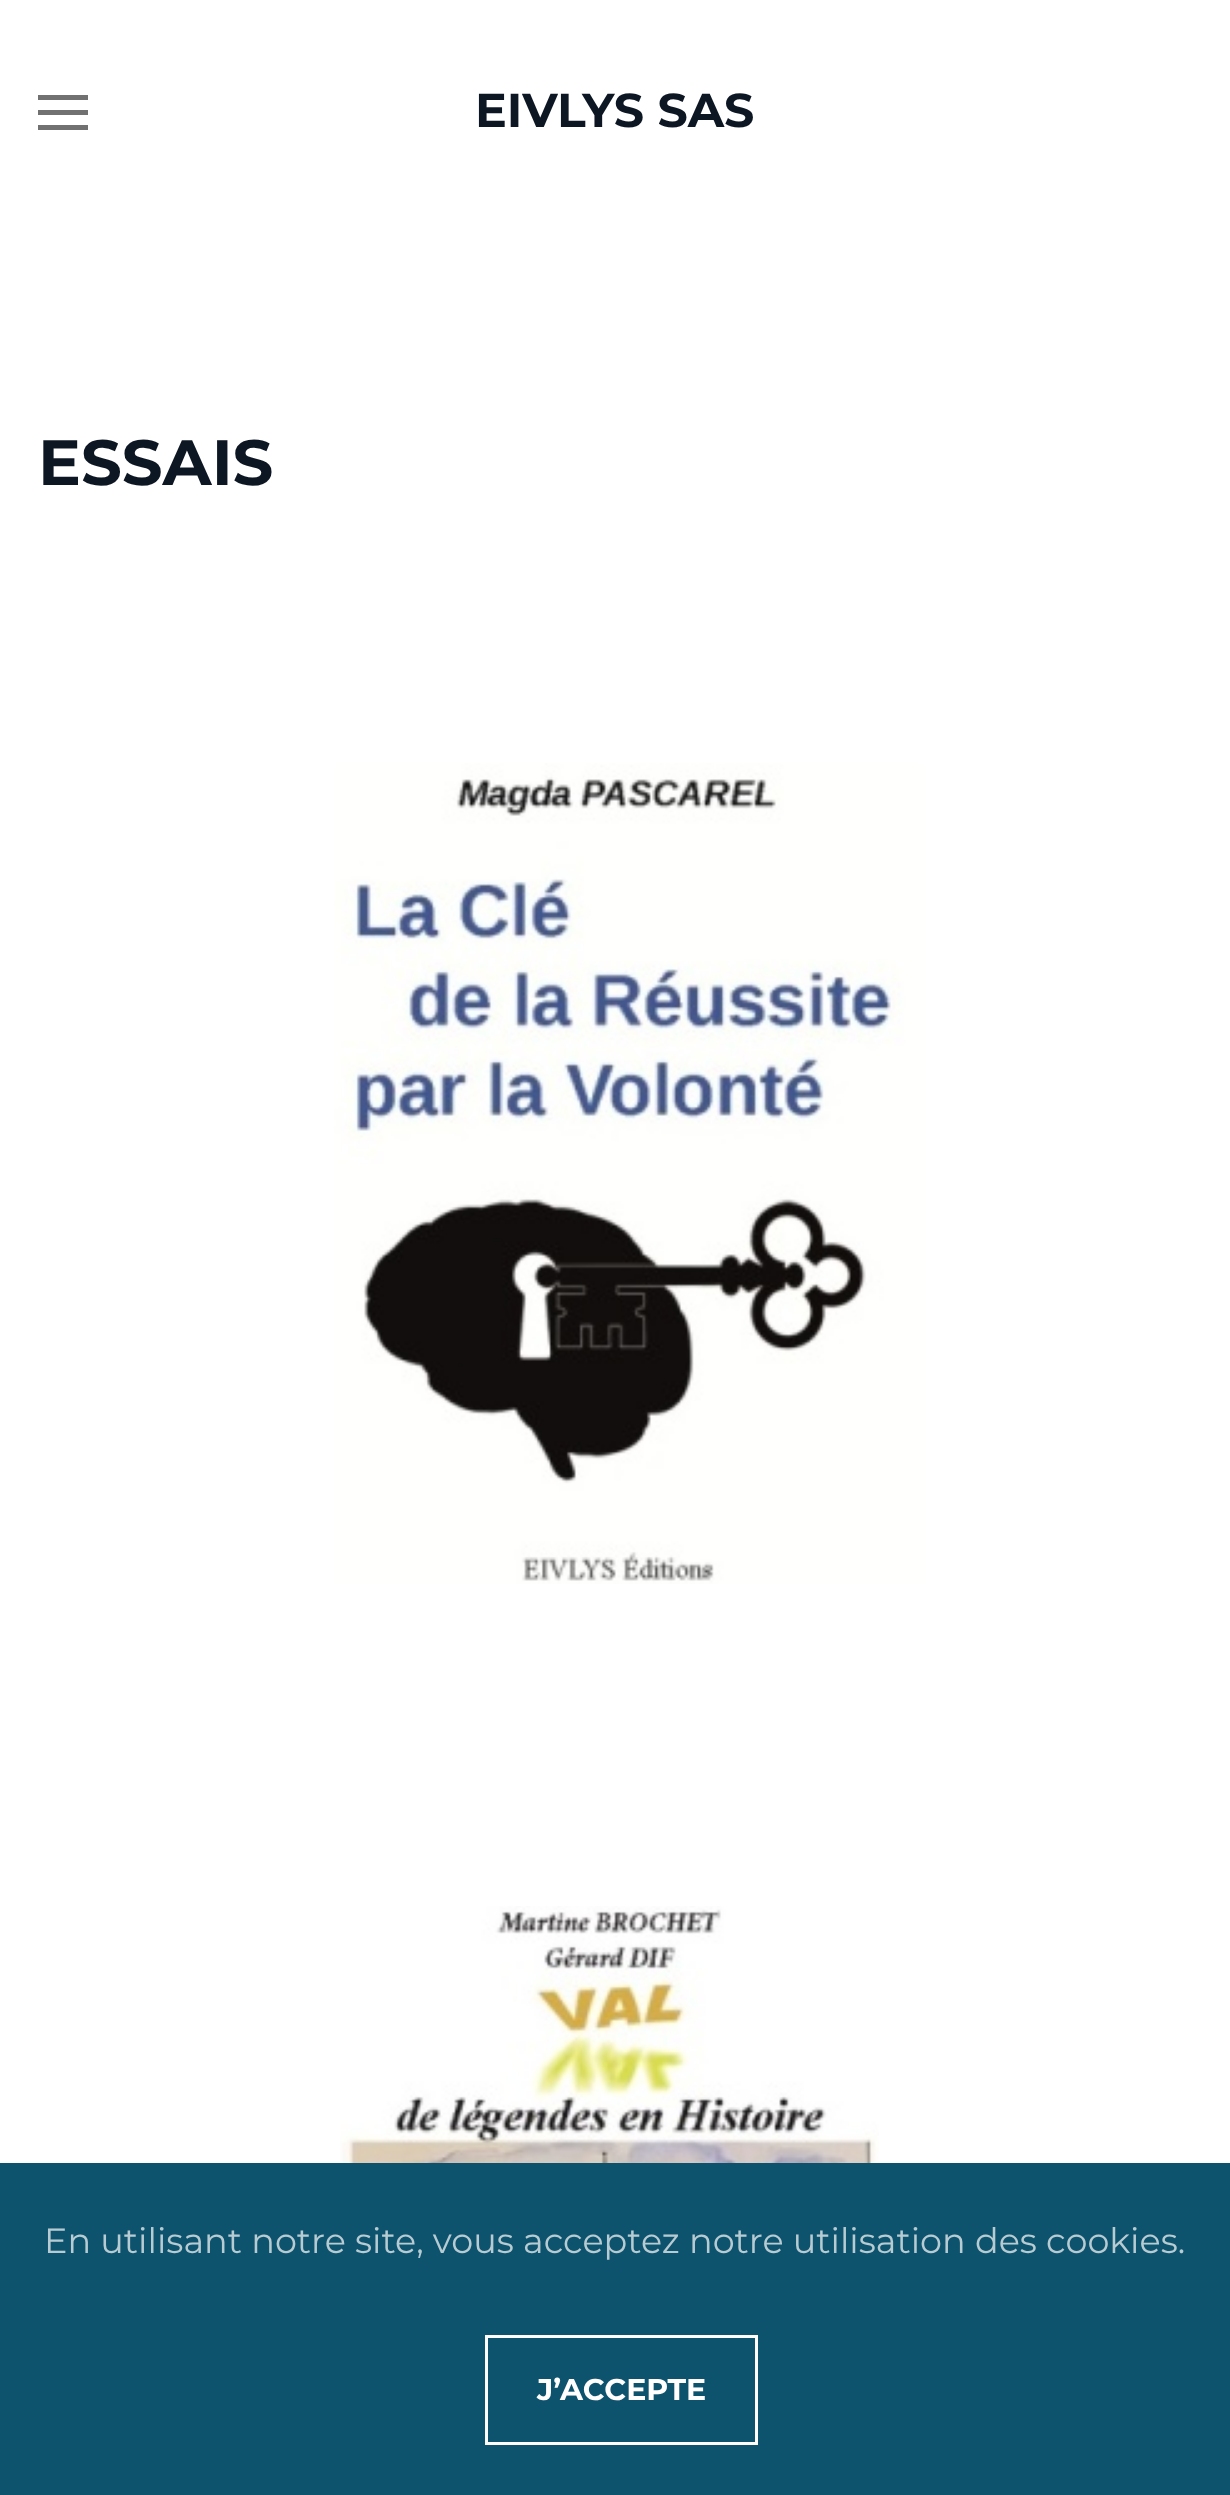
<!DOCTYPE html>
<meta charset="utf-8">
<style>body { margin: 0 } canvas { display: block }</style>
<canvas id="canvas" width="1230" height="2495"></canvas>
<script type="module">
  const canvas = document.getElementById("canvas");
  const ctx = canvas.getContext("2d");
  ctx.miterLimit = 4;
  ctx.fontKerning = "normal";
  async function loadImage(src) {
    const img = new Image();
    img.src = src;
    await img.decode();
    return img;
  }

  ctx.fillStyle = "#ffffff";
  ctx.fillRect(0, 0, 1230, 2495);
  ctx.fillStyle = "#717171";
  ctx.fillRect(38, 95, 50, 5);
  ctx.fillRect(38, 110, 50, 5);
  ctx.fillRect(38, 125, 50, 5);
  ctx.font = "bold 47.5px Montserrat";
  ctx.fillStyle = "#0d1724";
  ctx.fillText("EIVLYS SAS", 475, 127);
  ctx.font = "bold 64px Montserrat";
  ctx.fillText("ESSAIS", 38, 485);
  ctx.drawImage(await loadImage("img1.png"), 334, 763, 594, 821);
  ctx.drawImage(await loadImage("img2.png"), 340, 1906, 539, 257);
  ctx.fillStyle = "#0e536d";
  ctx.fillRect(0, 2163, 1230, 332);
  ctx.font = "35px Montserrat";
  ctx.fillStyle = "#b7cbd3";
  ctx.fillText("En utilisant notre site, vous acceptez notre utilisation des cookies.", 44, 2253);
  ctx.strokeStyle = "#ffffff";
  ctx.lineWidth = 3;
  ctx.strokeRect(486.5, 2336.5, 270, 107);
  ctx.font = "bold 30px Montserrat";
  ctx.fillStyle = "#ffffff";
  ctx.fillText("J’ACCEPTE", 537, 2400);
</script>
